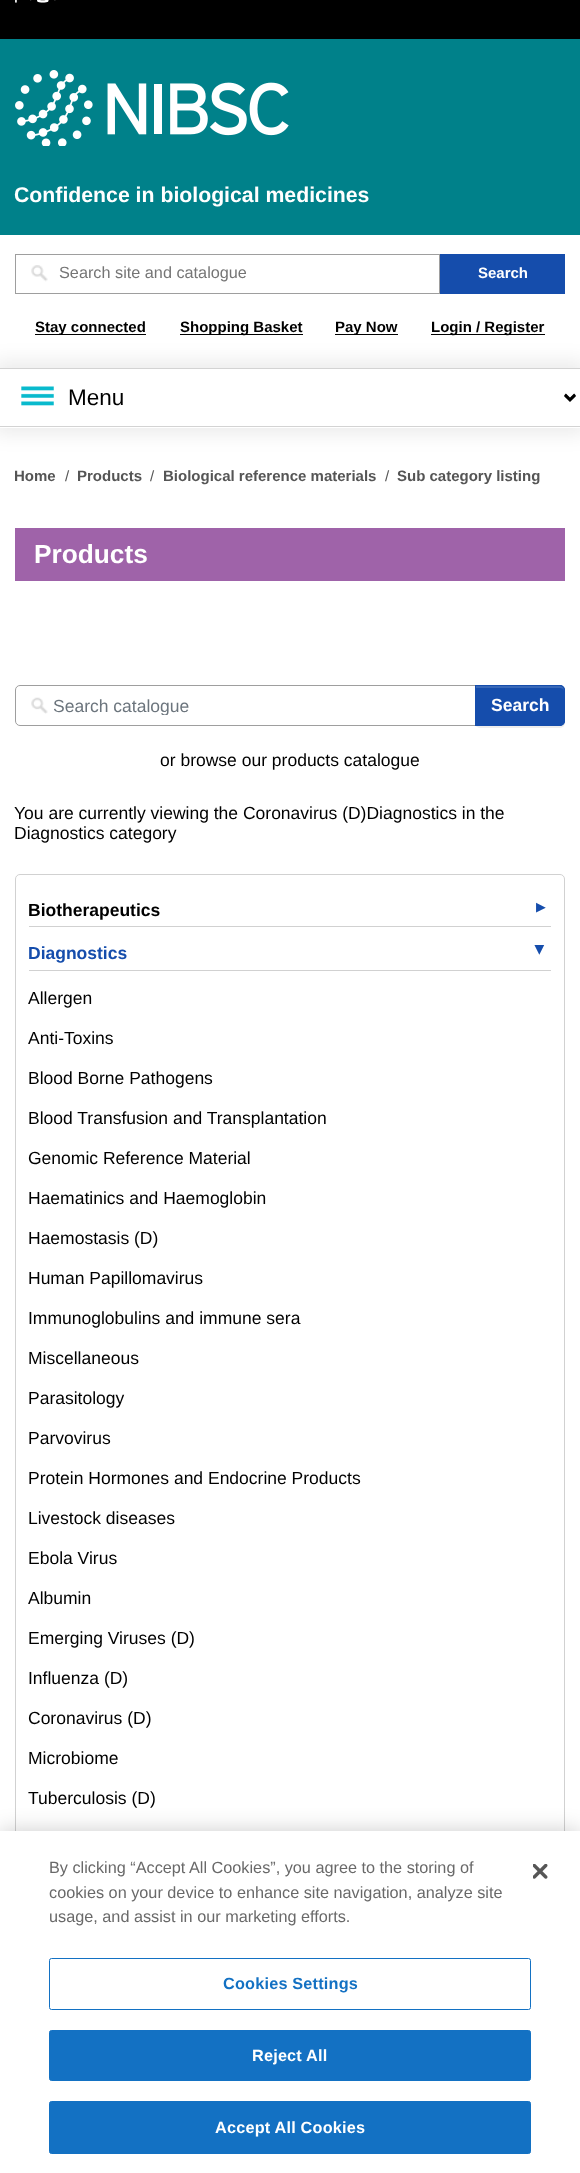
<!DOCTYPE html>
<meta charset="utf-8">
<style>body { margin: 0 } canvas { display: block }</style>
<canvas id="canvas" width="580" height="2173"></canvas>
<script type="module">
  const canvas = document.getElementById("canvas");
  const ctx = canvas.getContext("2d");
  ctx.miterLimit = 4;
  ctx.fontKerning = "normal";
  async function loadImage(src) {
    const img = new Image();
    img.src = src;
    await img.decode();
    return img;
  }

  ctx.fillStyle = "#ffffff";
  ctx.fillRect(0, 0, 580, 2173);
  ctx.fillStyle = "#000000";
  ctx.fillRect(0, 0, 580, 39);
  ctx.drawImage(await loadImage("img1.png"), 15, 0, 41, 3);
  ctx.fillStyle = "#00818a";
  ctx.fillRect(0, 39, 580, 196);
  ctx.drawImage(await loadImage("img2.png"), 15, 70, 274, 76);
  ctx.font = "bold 21.25px Liberation Sans";
  ctx.fillStyle = "#ffffff";
  ctx.fillText("Confidence in biological medicines", 14, 202);
  ctx.drawImage(await loadImage("img3.png"), 31, 265, 17, 17);
  ctx.strokeStyle = "#9e9e9e";
  ctx.strokeRect(15.5, 254.5, 424, 39);
  ctx.font = "16.25px Liberation Sans";
  ctx.fillStyle = "#757575";
  ctx.fillText("Search site and catalogue", 59, 278);
  ctx.fillStyle = "#154dac";
  ctx.fillRect(440, 254, 125, 40);
  ctx.font = "bold 15px Liberation Sans";
  ctx.fillStyle = "#ffffff";
  ctx.fillText("Search", 478, 278);
  ctx.fillStyle = "rgba(0, 0, 0, 0.08)";
  ctx.filter = "blur(9.5px)";
  ctx.beginPath();
  ctx.rect(-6, 361, 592, 73);
  ctx.fill();
  ctx.filter = "none";
  ctx.fillStyle = "#000000";
  ctx.fillRect(35, 334, 111, 1);
  ctx.fillText("Stay connected", 35, 332);
  ctx.fillRect(180, 334, 123, 1);
  ctx.fillText("Shopping Basket", 180, 332);
  ctx.fillRect(335, 334, 63, 1);
  ctx.fillText("Pay Now", 335, 332);
  ctx.fillRect(431, 334, 114, 1);
  ctx.fillText("Login / Register", 431, 332);
  ctx.fillStyle = "#ffffff";
  ctx.fillRect(0, 369, 580, 59);
  ctx.drawImage(await loadImage("img4.png"), 21, 386, 555, 20);
  ctx.fillStyle = "#d3d3d3";
  ctx.fillRect(0, 368, 580, 1);
  ctx.fillRect(0, 426, 580, 1);
  ctx.beginPath();
  ctx.moveTo(565, 394.5);
  ctx.lineTo(570, 399.5);
  ctx.lineTo(575, 394.5);
  ctx.strokeStyle = "#000000";
  ctx.lineWidth = 2.5;
  ctx.stroke();
  ctx.font = "22.5px Liberation Sans";
  ctx.fillStyle = "#000000";
  ctx.fillText("Menu", 68, 405);
  ctx.font = "bold 15px Liberation Sans";
  ctx.fillStyle = "#555555";
  ctx.fillText("Home", 14, 481);
  ctx.font = "15px Liberation Sans";
  ctx.fillText("/", 65, 481);
  ctx.font = "bold 15px Liberation Sans";
  ctx.fillText("Products", 77, 481);
  ctx.font = "15px Liberation Sans";
  ctx.fillText("/", 150, 481);
  ctx.font = "bold 15px Liberation Sans";
  ctx.fillText("Biological reference materials", 163, 481);
  ctx.font = "15px Liberation Sans";
  ctx.fillText("/", 385, 481);
  ctx.font = "bold 15px Liberation Sans";
  ctx.fillText("Sub category listing", 397, 481);
  ctx.fillStyle = "#9f63a9";
  ctx.fillRect(15, 528, 550, 53);
  ctx.font = "bold 26.25px Liberation Sans";
  ctx.fillStyle = "#ffffff";
  ctx.fillText("Products", 34, 563);
  ctx.drawImage(await loadImage("img5.png"), 31, 697, 17, 17);
  ctx.beginPath();
  ctx.roundRect(15.5, 685.5, 460, 40, [4.5, 0, 0, 4.5]);
  ctx.strokeStyle = "#9e9e9e";
  ctx.lineWidth = 1;
  ctx.stroke();
  ctx.save();
  ctx.beginPath();
  ctx.rect(54, 695, 406, 20);
  ctx.clip();
  ctx.font = "17.5px Liberation Sans";
  ctx.fillStyle = "#6c757d";
  ctx.fillText("Search catalogue", 53, 712);
  ctx.restore();
  ctx.fillStyle = "rgba(0, 0, 0, 0.07)";
  ctx.filter = "blur(0.5px)";
  ctx.beginPath();
  ctx.roundRect(475, 686, 90, 42, 5);
  ctx.fill();
  ctx.filter = "none";
  ctx.fillStyle = "#154dac";
  ctx.beginPath();
  ctx.roundRect(475, 685, 90, 41, [0, 5, 5, 0]);
  ctx.fill();
  ctx.fillStyle = "#3868b8";
  ctx.beginPath();
  ctx.moveTo(476, 688);
  ctx.lineTo(560, 688);
  ctx.bezierCurveTo(562, 688, 564, 689, 564, 691);
  ctx.lineTo(564, 690);
  ctx.bezierCurveTo(564, 688, 562, 686, 560, 686);
  ctx.lineTo(476, 686);
  ctx.closePath();
  ctx.fill();
  ctx.beginPath();
  ctx.roundRect(475.5, 685.5, 89, 40, [0, 4.5, 4.5, 0]);
  ctx.strokeStyle = "#154dac";
  ctx.stroke();
  ctx.font = "bold 17.5px Liberation Sans";
  ctx.fillStyle = "#ffffff";
  ctx.fillText("Search", 491, 711);
  ctx.font = "17.5px Liberation Sans";
  ctx.fillStyle = "#000000";
  ctx.fillText("or browse our products catalogue", 160, 766);
  ctx.fillText("You are currently viewing the Coronavirus (D)Diagnostics in the", 14, 819);
  ctx.fillText("Diagnostics category", 14, 839);
  ctx.beginPath();
  ctx.roundRect(15.5, 874.5, 549, 1141, 4.5);
  ctx.strokeStyle = "#d1d1d1";
  ctx.stroke();
  ctx.fillStyle = "#d1d1d1";
  ctx.fillRect(29, 926, 522, 1);
  ctx.font = "bold 17.5px Liberation Sans";
  ctx.fillStyle = "#000000";
  ctx.fillText("Biotherapeutics", 28, 916);
  ctx.font = "bold 12px DejaVu Sans";
  ctx.fillStyle = "#154dac";
  ctx.fillText("▶", 536, 911);
  ctx.fillStyle = "#d1d1d1";
  ctx.fillRect(29, 970, 522, 1);
  ctx.font = "bold 17.5px Liberation Sans";
  ctx.fillStyle = "#154dac";
  ctx.fillText("Diagnostics", 28, 959);
  ctx.font = "bold 12px DejaVu Sans";
  ctx.save();
  ctx.translate(536, 945);
  ctx.rotate(90 * Math.PI / 180);
  ctx.fillText("▶", 0, 0);
  ctx.restore();
  ctx.font = "17.5px Liberation Sans";
  ctx.fillStyle = "#000000";
  ctx.fillText("Allergen", 28, 1004);
  ctx.fillText("Anti-Toxins", 28, 1044);
  ctx.fillText("Blood Borne Pathogens", 28, 1084);
  ctx.fillText("Blood Transfusion and Transplantation", 28, 1124);
  ctx.fillText("Genomic Reference Material", 28, 1164);
  ctx.fillText("Haematinics and Haemoglobin", 28, 1204);
  ctx.fillText("Haemostasis (D)", 28, 1244);
  ctx.fillText("Human Papillomavirus", 28, 1284);
  ctx.fillText("Immunoglobulins and immune sera", 28, 1324);
  ctx.fillText("Miscellaneous", 28, 1364);
  ctx.fillText("Parasitology", 28, 1404);
  ctx.fillText("Parvovirus", 28, 1444);
  ctx.fillText("Protein Hormones and Endocrine Products", 28, 1484);
  ctx.fillText("Livestock diseases", 28, 1524);
  ctx.fillText("Ebola Virus", 28, 1564);
  ctx.fillText("Albumin", 28, 1604);
  ctx.fillText("Emerging Viruses (D)", 28, 1644);
  ctx.fillText("Influenza (D)", 28, 1684);
  ctx.fillText("Coronavirus (D)", 28, 1724);
  ctx.fillText("Microbiome", 28, 1764);
  ctx.fillText("Tuberculosis (D)", 28, 1804);
  ctx.fillStyle = "rgba(0, 0, 0, 0.2)";
  ctx.filter = "blur(11px)";
  ctx.beginPath();
  ctx.rect(0, 1831, 580, 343);
  ctx.fill();
  ctx.filter = "none";
  ctx.fillStyle = "#ffffff";
  ctx.fillRect(0, 1831, 580, 342);
  ctx.font = "16.25px Liberation Sans";
  ctx.fillStyle = "#696969";
  ctx.fillText("By clicking “Accept All Cookies”, you agree to the storing of", 49, 1873);
  ctx.fillText("cookies on your device to enhance site navigation, analyze site", 49, 1898);
  ctx.fillText("usage, and assist in our marketing efforts.", 49, 1922);
  ctx.beginPath();
  ctx.roundRect(49.5, 1958.5, 481, 51, 2);
  ctx.strokeStyle = "#1371c3";
  ctx.stroke();
  ctx.letterSpacing = "0.2px";
  ctx.font = "bold 16.25px Liberation Sans";
  ctx.fillStyle = "#1371c3";
  ctx.fillText("Cookies Settings", 223, 1989);
  ctx.beginPath();
  ctx.roundRect(49.5, 2030.5, 481, 50, 2);
  ctx.fill();
  ctx.stroke();
  ctx.fillStyle = "#ffffff";
  ctx.fillText("Reject All", 252, 2061);
  ctx.fillStyle = "#1371c3";
  ctx.beginPath();
  ctx.roundRect(49.5, 2101.5, 481, 52, 2);
  ctx.fill();
  ctx.stroke();
  ctx.fillStyle = "#ffffff";
  ctx.fillText("Accept All Cookies", 215, 2133);
  ctx.drawImage(await loadImage("img6.png"), 533, 1864, 15, 15);
</script>
